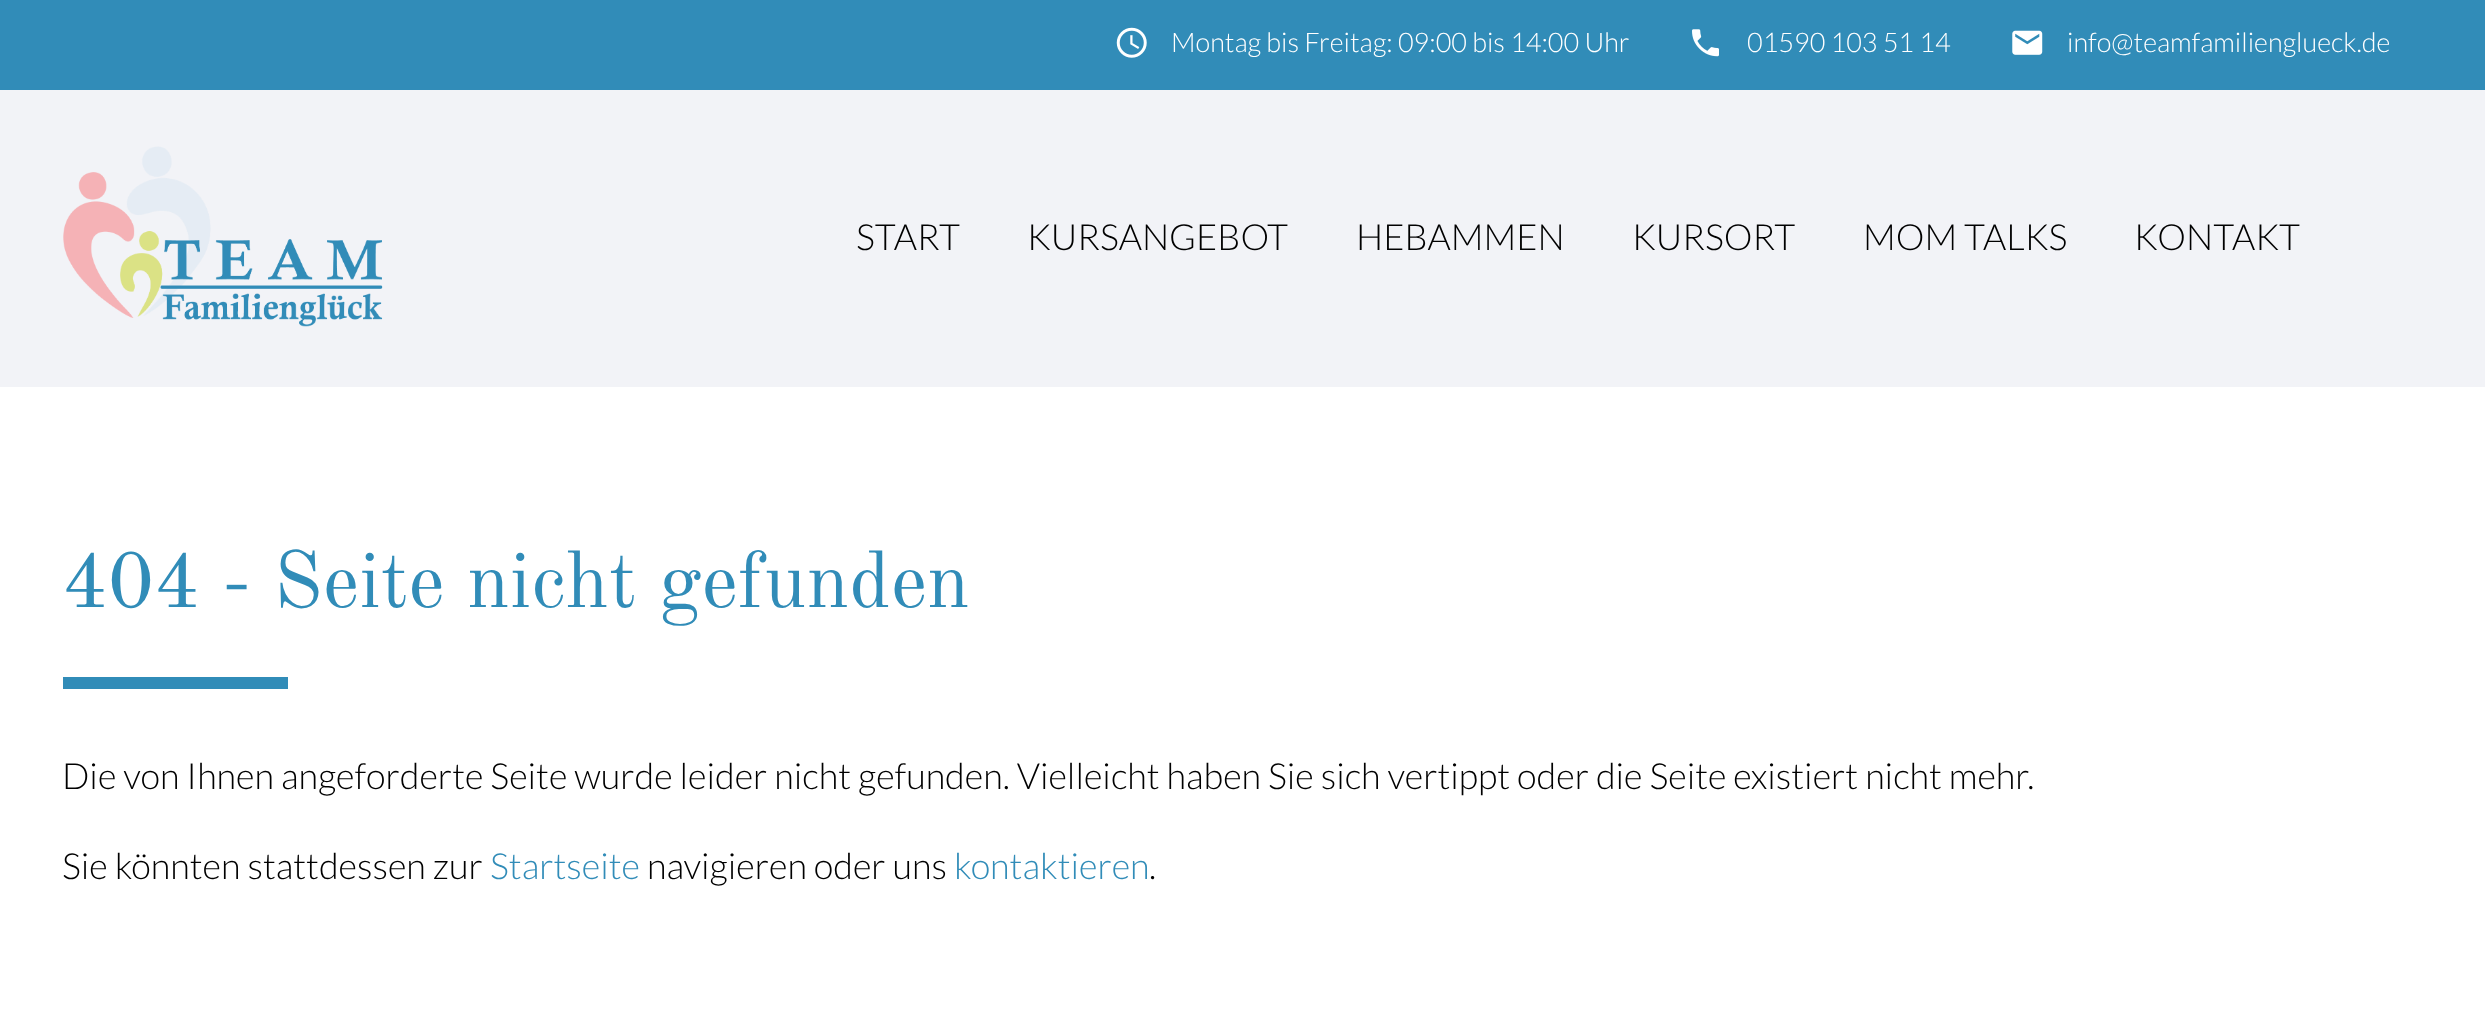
<!DOCTYPE html>
<meta charset="utf-8">
<style>body { margin: 0 } canvas { display: block }</style>
<canvas id="canvas" width="2485" height="1013"></canvas>
<script type="module">
  const canvas = document.getElementById("canvas");
  const ctx = canvas.getContext("2d");
  ctx.miterLimit = 4;
  ctx.fontKerning = "normal";
  async function loadImage(src) {
    const img = new Image();
    img.src = src;
    await img.decode();
    return img;
  }

  ctx.fillStyle = "#ffffff";
  ctx.fillRect(0, 0, 2485, 1013);
  ctx.fillStyle = "#318cb8";
  ctx.fillRect(0, 0, 2485, 90);
  ctx.drawImage(await loadImage("img1.png"), 1116, 27, 31, 31);
  ctx.font = "300 27px Lato";
  ctx.fillStyle = "#ffffff";
  ctx.fillText("Montag bis Freitag: 09:00 bis 14:00 Uhr", 1171, 52);
  ctx.drawImage(await loadImage("img2.png"), 1692, 29, 27, 28);
  ctx.fillText("01590 103 51 14", 1747, 52);
  ctx.drawImage(await loadImage("img3.png"), 2012, 30, 31, 25);
  ctx.fillText("info@teamfamilienglueck.de", 2067, 52);
  ctx.fillStyle = "#f2f3f7";
  ctx.fillRect(0, 90, 2485, 297);
  ctx.drawImage(await loadImage("img4.png"), 63, 146, 320, 181);
  ctx.font = "300 36px Lato";
  ctx.fillStyle = "#000000";
  ctx.fillText("START", 856, 250);
  ctx.fillText("KURSANGEBOT", 1027, 250);
  ctx.fillText("HEBAMMEN", 1356, 250);
  ctx.fillText("KURSORT", 1632, 250);
  ctx.fillText("MOM TALKS", 1863, 250);
  ctx.fillText("KONTAKT", 2134, 250);
  ctx.font = "79.25px Old Standard TT";
  ctx.fillStyle = "#318cb8";
  ctx.fillText("404 - Seite nicht gefunden", 62, 607);
  ctx.fillRect(63, 677, 225, 12);
  ctx.font = "300 36px Lato";
  ctx.fillStyle = "#000000";
  ctx.fillText("Die von Ihnen angeforderte Seite wurde leider nicht gefunden. Vielleicht haben Sie sich vertippt oder die Seite existiert nicht mehr.", 62, 789);
  ctx.fillText("Sie könnten stattdessen zur", 62, 879);
  ctx.fillStyle = "#318cb8";
  ctx.fillText("Startseite", 490, 879);
  ctx.fillStyle = "#000000";
  ctx.fillText("navigieren oder uns", 647, 879);
  ctx.fillStyle = "#318cb8";
  ctx.fillText("kontaktieren", 954, 879);
  ctx.fillStyle = "#000000";
  ctx.fillText(".", 1149, 879);
</script>
